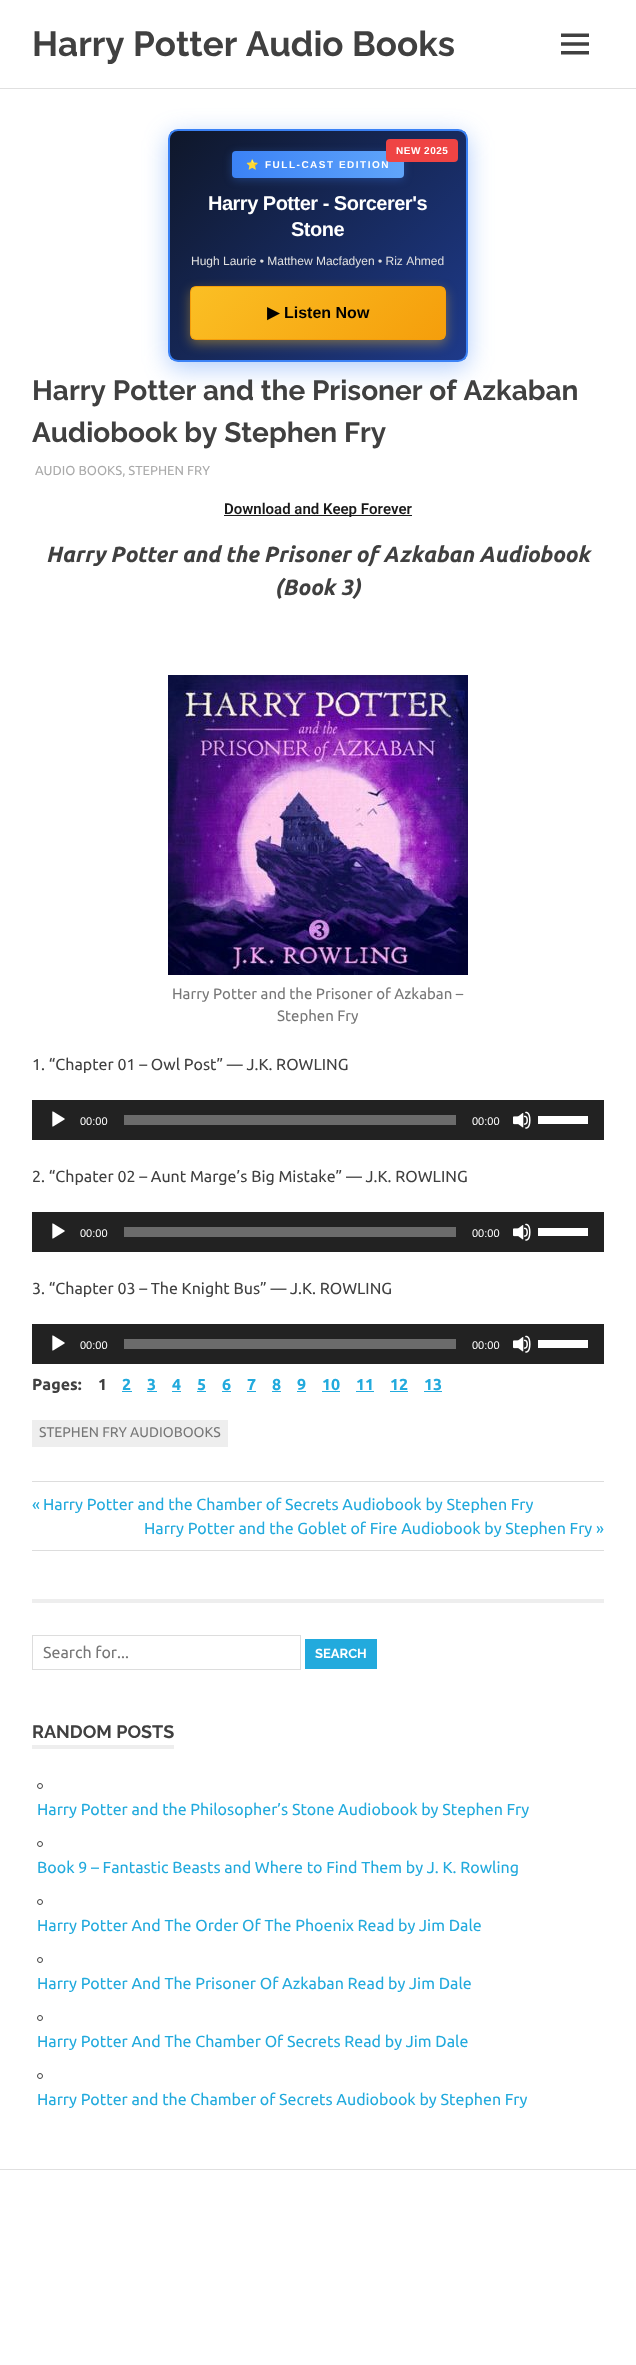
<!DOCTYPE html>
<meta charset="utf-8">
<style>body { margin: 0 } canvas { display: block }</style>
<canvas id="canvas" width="636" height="2365"></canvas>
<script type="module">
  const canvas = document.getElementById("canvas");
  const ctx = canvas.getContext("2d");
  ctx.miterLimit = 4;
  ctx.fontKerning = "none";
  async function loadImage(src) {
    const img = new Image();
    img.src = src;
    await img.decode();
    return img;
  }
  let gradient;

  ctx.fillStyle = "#ffffff";
  ctx.fillRect(0, 0, 636, 2365);
  ctx.fillStyle = "#e0e0e0";
  ctx.fillRect(0, 88, 636, 1);
  ctx.font = "bold 35px Raleway";
  ctx.fillStyle = "#404040";
  ctx.fillText("Harry Potter Audio Books", 32, 56);
  ctx.drawImage(await loadImage("img1.png"), 561, 33, 28, 22);
  ctx.fillStyle = "rgba(59, 130, 246, 0.4)";
  ctx.filter = "blur(12.5px)";
  ctx.beginPath();
  ctx.roundRect(168, 135, 300, 233, 10);
  ctx.fill();
  ctx.filter = "none";
  ctx.save();
  ctx.beginPath();
  ctx.roundRect(168, 129, 300, 233, 10);
  ctx.clip();
  gradient = ctx.createLinearGradient(187, 114, 449, 377);
  gradient.addColorStop(0, "#0f172a");
  gradient.addColorStop(1, "#1e3a8a");
  ctx.fillStyle = gradient;
  ctx.fillRect(170, 131, 296, 229);
  ctx.restore();
  ctx.beginPath();
  ctx.roundRect(169, 130, 298, 231, 9);
  ctx.strokeStyle = "#3b82f6";
  ctx.lineWidth = 2;
  ctx.stroke();
  ctx.fillStyle = "rgba(59, 130, 246, 0.3)";
  ctx.filter = "blur(4px)";
  ctx.beginPath();
  ctx.roundRect(232, 153, 172, 27, 4);
  ctx.fill();
  ctx.filter = "none";
  gradient = ctx.createLinearGradient(232, 165, 404, 165);
  gradient.addColorStop(0, "#3b82f6");
  gradient.addColorStop(1, "#60a5fa");
  ctx.fillStyle = gradient;
  ctx.beginPath();
  ctx.roundRect(232, 151, 172, 27, 4);
  ctx.fill();
  ctx.letterSpacing = "1.5px";
  ctx.font = "bold 10px Liberation Sans";
  ctx.fillStyle = "#ffffff";
  ctx.fillText("FULL-CAST EDITION", 265, 168);
  ctx.fillStyle = "#ef4444";
  ctx.beginPath();
  ctx.roundRect(386, 139, 72, 23, 4);
  ctx.fill();
  ctx.letterSpacing = "0.5px";
  ctx.fillStyle = "#ffffff";
  ctx.fillText("NEW 2025", 396, 154);
  ctx.letterSpacing = "1.5px";
  ctx.font = "bold 10px Noto Color Emoji";
  ctx.fillText("⭐", 246, 168);
  ctx.letterSpacing = "-0.5px";
  ctx.font = "bold 20px Liberation Sans";
  ctx.fillText("Harry Potter - Sorcerer's", 208, 210);
  ctx.fillText("Stone", 291, 236);
  ctx.letterSpacing = "0px";
  ctx.font = "12px Liberation Sans";
  ctx.fillStyle = "#e0e0e0";
  ctx.fillText("Hugh Laurie • Matthew Macfadyen • Riz Ahmed", 191, 265);
  ctx.fillStyle = "rgba(251, 191, 36, 0.4)";
  ctx.filter = "blur(6px)";
  ctx.beginPath();
  ctx.roundRect(190, 290, 256, 54, 6);
  ctx.fill();
  ctx.filter = "none";
  ctx.save();
  ctx.beginPath();
  ctx.roundRect(190, 286, 256, 54, 6);
  ctx.clip();
  gradient = ctx.createLinearGradient(242, 237, 395, 390);
  gradient.addColorStop(0, "#fbbf24");
  gradient.addColorStop(1, "#f59e0b");
  ctx.fillStyle = gradient;
  ctx.fillRect(191, 287, 254, 52);
  ctx.restore();
  ctx.beginPath();
  ctx.roundRect(190.5, 286.5, 255, 53, 5.5);
  ctx.strokeStyle = "#f59e0b";
  ctx.lineWidth = 1;
  ctx.stroke();
  ctx.font = "bold 16px DejaVu Sans";
  ctx.fillStyle = "#000000";
  ctx.fillText("▶", 267, 318);
  ctx.font = "bold 16px Liberation Sans";
  ctx.fillText("Listen Now", 284, 318);
  ctx.font = "bold 28px Raleway";
  ctx.fillStyle = "#404040";
  ctx.fillText("Harry Potter and the Prisoner of Azkaban", 32, 400);
  ctx.fillText("Audiobook by Stephen Fry", 32, 442);
  ctx.font = "13px Ubuntu";
  ctx.fillStyle = "#aaaaaa";
  ctx.fillText("AUDIO BOOKS, STEPHEN FRY", 35, 475);
  ctx.fillStyle = "#1a1a1a";
  ctx.fillRect(224, 515, 188, 1);
  ctx.font = "600 15px Roboto";
  ctx.fillText("Download and Keep Forever", 224, 514);
  ctx.font = "italic bold 22px Ubuntu";
  ctx.fillStyle = "#404040";
  ctx.fillText("Harry Potter and the Prisoner of Azkaban Audiobook", 46, 562);
  ctx.fillText("(Book 3)", 275, 595);
  ctx.drawImage(await loadImage("img2.png"), 168, 675, 300, 300);
  ctx.font = "15px Ubuntu";
  ctx.fillStyle = "#777777";
  ctx.fillText("Harry Potter and the Prisoner of Azkaban –", 172, 999);
  ctx.fillText("Stephen Fry", 277, 1021);
  ctx.font = "16px Ubuntu";
  ctx.fillStyle = "#404040";
  ctx.fillText("1. “Chapter 01 – Owl Post” — J.K. ROWLING", 32, 1070);
  ctx.fillStyle = "#222222";
  ctx.fillRect(32, 1100, 572, 40);
  ctx.drawImage(await loadImage("img3.png"), 52, 1111, 13, 16);
  ctx.font = "11px Liberation Sans";
  ctx.fillStyle = "#ffffff";
  ctx.fillText("00:00", 80, 1125);
  ctx.fillStyle = "#6b6b6b";
  ctx.fillRect(124, 1115, 332, 10);
  ctx.fillStyle = "#ffffff";
  ctx.fillText("00:00", 472, 1125);
  ctx.drawImage(await loadImage("img4.png"), 513, 1111, 18, 18);
  ctx.fillRect(538, 1116, 50, 8);
  ctx.font = "16px Ubuntu";
  ctx.fillStyle = "#404040";
  ctx.fillText("2. “Chpater 02 – Aunt Marge’s Big Mistake” — J.K. ROWLING", 32, 1182);
  ctx.fillStyle = "#222222";
  ctx.fillRect(32, 1212, 572, 40);
  ctx.drawImage(await loadImage("img3.png"), 52, 1223, 13, 16);
  ctx.font = "11px Liberation Sans";
  ctx.fillStyle = "#ffffff";
  ctx.fillText("00:00", 80, 1237);
  ctx.fillStyle = "#6b6b6b";
  ctx.fillRect(124, 1227, 332, 10);
  ctx.fillStyle = "#ffffff";
  ctx.fillText("00:00", 472, 1237);
  ctx.drawImage(await loadImage("img4.png"), 513, 1223, 18, 18);
  ctx.fillRect(538, 1228, 50, 8);
  ctx.font = "16px Ubuntu";
  ctx.fillStyle = "#404040";
  ctx.fillText("3. “Chapter 03 – The Knight Bus” — J.K. ROWLING", 32, 1294);
  ctx.fillStyle = "#222222";
  ctx.fillRect(32, 1324, 572, 40);
  ctx.drawImage(await loadImage("img3.png"), 52, 1335, 13, 16);
  ctx.font = "11px Liberation Sans";
  ctx.fillStyle = "#ffffff";
  ctx.fillText("00:00", 80, 1349);
  ctx.fillStyle = "#6b6b6b";
  ctx.fillRect(124, 1339, 332, 10);
  ctx.fillStyle = "#ffffff";
  ctx.fillText("00:00", 472, 1349);
  ctx.drawImage(await loadImage("img4.png"), 513, 1335, 18, 18);
  ctx.fillRect(538, 1340, 50, 8);
  ctx.font = "bold 16px Ubuntu";
  ctx.fillStyle = "#404040";
  ctx.fillText("Pages:", 32, 1390);
  ctx.fillText("1", 98, 1390);
  ctx.fillStyle = "#22aadd";
  ctx.fillText("2", 122, 1390);
  ctx.fillRect(122, 1391, 10, 1);
  ctx.fillText("3", 147, 1390);
  ctx.fillRect(147, 1391, 10, 1);
  ctx.fillText("4", 172, 1390);
  ctx.fillRect(172, 1391, 9, 1);
  ctx.fillText("5", 197, 1390);
  ctx.fillRect(197, 1391, 9, 1);
  ctx.fillText("6", 222, 1390);
  ctx.fillRect(222, 1391, 9, 1);
  ctx.fillText("7", 247, 1390);
  ctx.fillRect(247, 1391, 9, 1);
  ctx.fillText("8", 272, 1390);
  ctx.fillRect(272, 1391, 9, 1);
  ctx.fillText("9", 297, 1390);
  ctx.fillRect(297, 1391, 9, 1);
  ctx.fillText("10", 322, 1390);
  ctx.fillRect(322, 1391, 18, 1);
  ctx.fillText("11", 356, 1390);
  ctx.fillRect(356, 1391, 18, 1);
  ctx.fillText("12", 390, 1390);
  ctx.fillRect(390, 1391, 18, 1);
  ctx.fillText("13", 424, 1390);
  ctx.fillRect(424, 1391, 18, 1);
  ctx.fillStyle = "#eeeeee";
  ctx.fillRect(32, 1420, 196, 27);
  ctx.font = "14px Ubuntu";
  ctx.fillStyle = "#777777";
  ctx.fillText("STEPHEN FRY AUDIOBOOKS", 39, 1437);
  ctx.fillStyle = "#dddddd";
  ctx.fillRect(32, 1481, 572, 1);
  ctx.fillRect(32, 1550, 572, 1);
  ctx.font = "16px Ubuntu";
  ctx.fillStyle = "#22aadd";
  ctx.fillText("«", 32, 1510);
  ctx.fillText("Harry Potter and the Chamber of Secrets Audiobook by Stephen Fry", 43, 1510);
  ctx.fillText("Harry Potter and the Goblet of Fire Audiobook by Stephen Fry", 144, 1534);
  ctx.fillText("»", 596, 1534);
  ctx.fillStyle = "#eeeeee";
  ctx.fillRect(32, 1599, 572, 4);
  ctx.strokeStyle = "#dddddd";
  ctx.strokeRect(32.5, 1635.5, 268, 34);
  ctx.fillStyle = "#777777";
  ctx.fillText("Search for...", 43, 1658);
  ctx.fillStyle = "#22aadd";
  ctx.fillRect(305, 1639, 72, 30);
  ctx.font = "bold 13px Raleway";
  ctx.fillStyle = "#ffffff";
  ctx.fillText("SEARCH", 315, 1658);
  ctx.fillStyle = "#eeeeee";
  ctx.fillRect(32, 1745, 142, 4);
  ctx.font = "bold 18px Raleway";
  ctx.fillStyle = "#404040";
  ctx.fillText("RANDOM POSTS", 32, 1738);
  ctx.beginPath();
  ctx.arc(40, 1786, 2.5, 0, Math.PI * 2);
  ctx.strokeStyle = "#404040";
  ctx.stroke();
  ctx.font = "16px Ubuntu";
  ctx.fillStyle = "#22aadd";
  ctx.fillText("Harry Potter and the Philosopher’s Stone Audiobook by Stephen Fry", 37, 1815);
  ctx.beginPath();
  ctx.arc(40, 1844, 2.5, 0, Math.PI * 2);
  ctx.stroke();
  ctx.fillText("Book 9 – Fantastic Beasts and Where to Find Them by J. K. Rowling", 37, 1873);
  ctx.beginPath();
  ctx.arc(40, 1902, 2.5, 0, Math.PI * 2);
  ctx.stroke();
  ctx.fillText("Harry Potter And The Order Of The Phoenix Read by Jim Dale", 37, 1931);
  ctx.beginPath();
  ctx.arc(40, 1960, 2.5, 0, Math.PI * 2);
  ctx.stroke();
  ctx.fillText("Harry Potter And The Prisoner Of Azkaban Read by Jim Dale", 37, 1989);
  ctx.beginPath();
  ctx.arc(40, 2018, 2.5, 0, Math.PI * 2);
  ctx.stroke();
  ctx.fillText("Harry Potter And The Chamber Of Secrets Read by Jim Dale", 37, 2047);
  ctx.beginPath();
  ctx.arc(40, 2076, 2.5, 0, Math.PI * 2);
  ctx.stroke();
  ctx.fillText("Harry Potter and the Chamber of Secrets Audiobook by Stephen Fry", 37, 2105);
  ctx.fillStyle = "#e0e0e0";
  ctx.fillRect(0, 2169, 636, 1);
</script>
